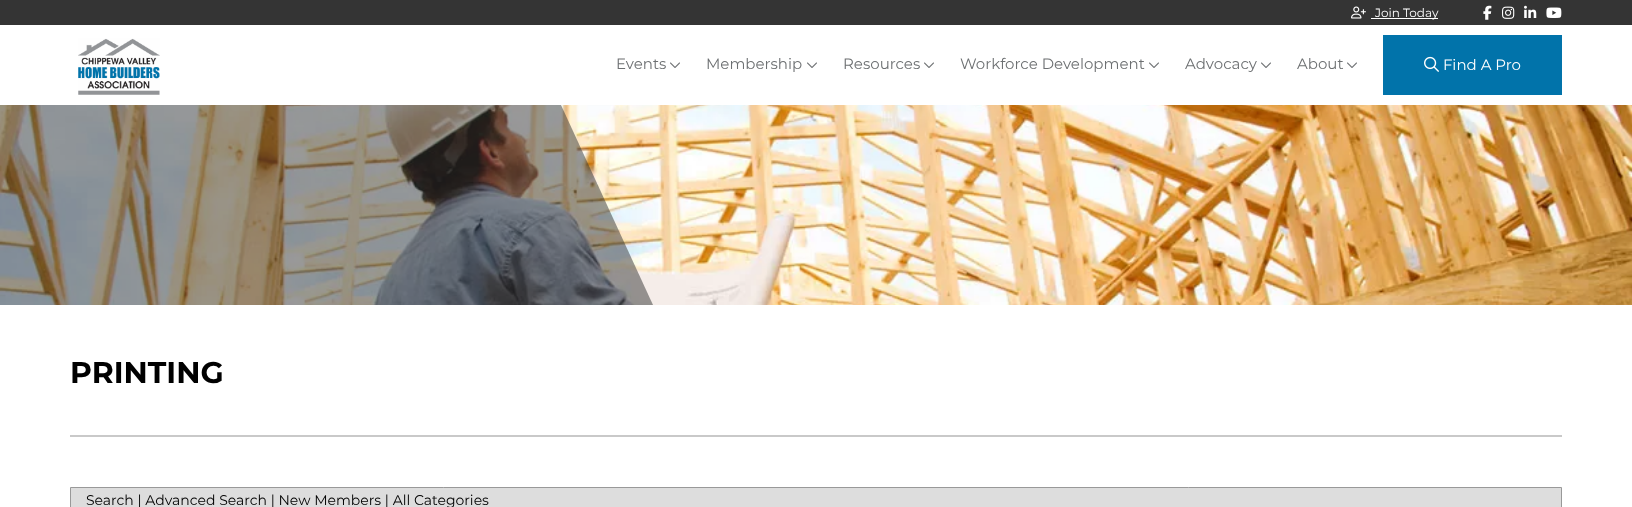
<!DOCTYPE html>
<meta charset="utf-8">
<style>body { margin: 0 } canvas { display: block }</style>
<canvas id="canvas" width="1632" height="507"></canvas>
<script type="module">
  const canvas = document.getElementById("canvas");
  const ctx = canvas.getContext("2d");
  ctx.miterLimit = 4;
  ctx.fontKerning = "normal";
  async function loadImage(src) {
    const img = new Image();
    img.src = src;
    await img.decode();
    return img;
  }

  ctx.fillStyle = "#ffffff";
  ctx.fillRect(0, 0, 1632, 507);
  ctx.fillStyle = "#343434";
  ctx.fillRect(0, 0, 1632, 25);
  ctx.drawImage(await loadImage("img1.png"), 1351, 6, 15, 13);
  ctx.fillStyle = "#ffffff";
  ctx.fillRect(1371, 18, 67, 1);
  ctx.font = "12px Montserrat";
  ctx.fillText("Join Today", 1375, 17);
  ctx.drawImage(await loadImage("img2.png"), 1483, 5, 9, 15);
  ctx.drawImage(await loadImage("img3.png"), 1502, 6, 13, 13);
  ctx.drawImage(await loadImage("img4.png"), 1524, 5, 13, 13);
  ctx.drawImage(await loadImage("img5.png"), 1546, 7, 16, 11);
  ctx.drawImage(await loadImage("img6.png"), 78, 38, 82, 57);
  ctx.font = "15px Montserrat";
  ctx.fillStyle = "#6d7072";
  ctx.fillText("Events", 616, 69);
  ctx.drawImage(await loadImage("img7.png"), 670, 62, 10, 6);
  ctx.fillText("Membership", 706, 69);
  ctx.drawImage(await loadImage("img7.png"), 807, 62, 10, 6);
  ctx.fillText("Resources", 843, 69);
  ctx.drawImage(await loadImage("img7.png"), 924, 62, 10, 6);
  ctx.fillText("Workforce Development", 960, 69);
  ctx.drawImage(await loadImage("img7.png"), 1149, 62, 10, 6);
  ctx.fillText("Advocacy", 1185, 69);
  ctx.drawImage(await loadImage("img7.png"), 1261, 62, 10, 6);
  ctx.fillText("About", 1297, 69);
  ctx.drawImage(await loadImage("img7.png"), 1347, 62, 10, 6);
  ctx.fillStyle = "#0173aa";
  ctx.fillRect(1383, 35, 179, 60);
  ctx.drawImage(await loadImage("img8.png"), 1424, 56, 15, 16);
  ctx.fillStyle = "#ffffff";
  ctx.fillText("Find A Pro", 1443, 70);
  ctx.drawImage(await loadImage("img9.png"), 0, 105, 1632, 200);
  ctx.fillStyle = "rgba(52, 52, 52, 0.5)";
  ctx.beginPath();
  ctx.moveTo(0, 105);
  ctx.lineTo(0, 305);
  ctx.lineTo(653, 305);
  ctx.lineTo(561, 105);
  ctx.closePath();
  ctx.fill();
  ctx.fillStyle = "#c9c9c9";
  ctx.fillRect(70, 435, 1492, 2);
  ctx.font = "bold 30px Montserrat";
  ctx.fillStyle = "#000000";
  ctx.fillText("PRINTING", 70, 383);
  ctx.fillStyle = "#dddddd";
  ctx.beginPath();
  ctx.rect(70.5, 487.5, 1491, 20);
  ctx.fill();
  ctx.strokeStyle = "#999999";
  ctx.stroke();
  ctx.font = "14px Montserrat";
  ctx.fillStyle = "#000000";
  ctx.fillText("Search | Advanced Search | New Members | All Categories", 86, 505);
</script>
